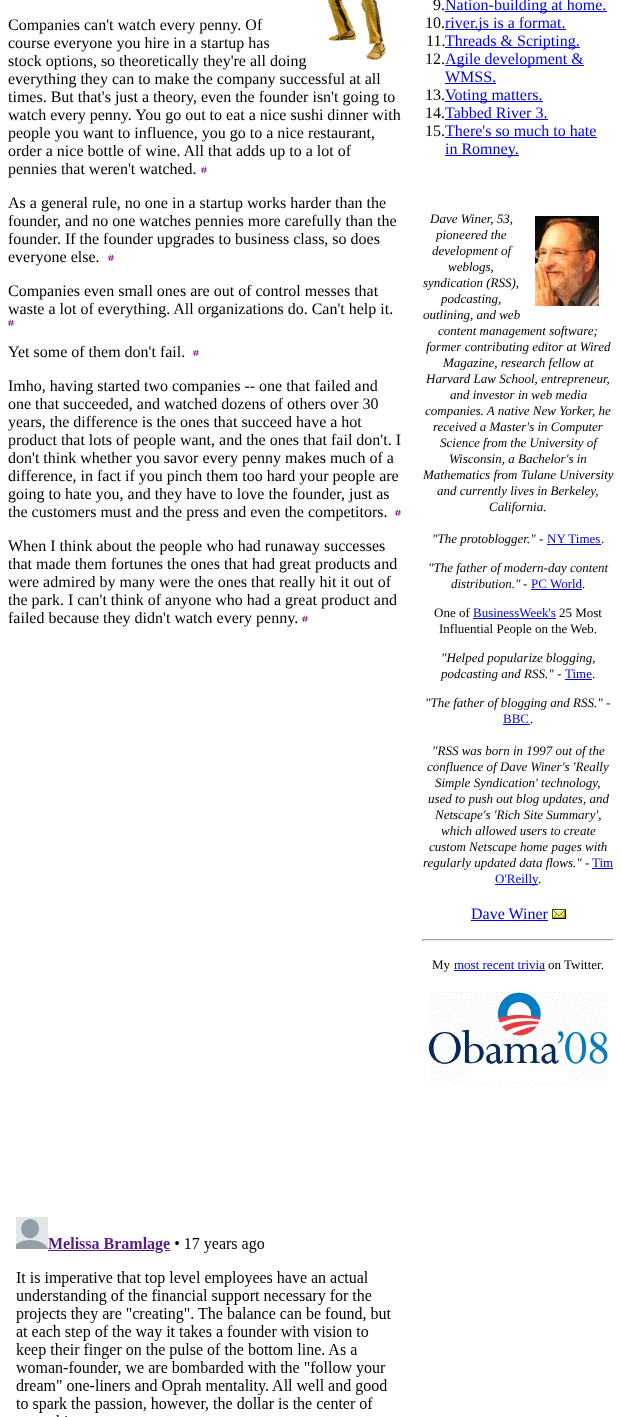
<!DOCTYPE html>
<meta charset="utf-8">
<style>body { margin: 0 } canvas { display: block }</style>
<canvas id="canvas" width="622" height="1417"></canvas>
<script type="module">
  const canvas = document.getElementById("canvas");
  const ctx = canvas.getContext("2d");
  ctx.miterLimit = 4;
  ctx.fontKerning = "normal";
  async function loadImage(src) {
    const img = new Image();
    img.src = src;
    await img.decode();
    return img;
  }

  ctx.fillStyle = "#ffffff";
  ctx.fillRect(0, 0, 622, 1417);
  ctx.drawImage(await loadImage("img1.png"), 326, 0, 60, 62);
  ctx.font = "16px Liberation Serif";
  ctx.fillStyle = "#000000";
  ctx.fillText("Companies can't watch every penny. Of", 8, 30);
  ctx.fillText("course everyone you hire in a startup has", 8, 48);
  ctx.fillText("stock options, so theoretically they're all doing", 8, 66);
  ctx.fillText("everything they can to make the company successful at all", 8, 84);
  ctx.fillText("times. But that's just a theory, even the founder isn't going to", 8, 102);
  ctx.fillText("watch every penny. You go out to eat a nice sushi dinner with", 8, 120);
  ctx.fillText("people you want to influence, you go to a nice restaurant,", 8, 138);
  ctx.fillText("order a nice bottle of wine. All that adds up to a lot of", 8, 156);
  ctx.fillText("pennies that weren't watched.", 8, 174);
  ctx.drawImage(await loadImage("img2.png"), 201, 166, 6, 7);
  ctx.fillText("As a general rule, no one in a startup works harder than the", 8, 208);
  ctx.fillText("founder, and no one watches pennies more carefully than the", 8, 226);
  ctx.fillText("founder. If the founder upgrades to business class, so does", 8, 244);
  ctx.fillText("everyone else.", 8, 262);
  ctx.drawImage(await loadImage("img2.png"), 108, 254, 6, 7);
  ctx.fillText("Companies even small ones are out of control messes that", 8, 296);
  ctx.fillText("waste a lot of everything. All organizations do. Can't help it.", 8, 314);
  ctx.drawImage(await loadImage("img2.png"), 8, 319, 6, 7);
  ctx.fillText("Yet some of them don't fail.", 8, 357);
  ctx.drawImage(await loadImage("img2.png"), 193, 349, 6, 7);
  ctx.fillText("Imho, having started two companies -- one that failed and", 8, 391);
  ctx.fillText("one that succeeded, and watched dozens of others over 30", 8, 409);
  ctx.fillText("years, the difference is the ones that succeed have a hot", 8, 427);
  ctx.fillText("product that lots of people want, and the ones that fail don't. I", 8, 445);
  ctx.fillText("don't think whether you savor every penny makes much of a", 8, 463);
  ctx.fillText("difference, in fact if you pinch them too hard your people are", 8, 481);
  ctx.fillText("going to hate you, and they have to love the founder, just as", 8, 499);
  ctx.fillText("the customers must and the press and even the competitors.", 8, 517);
  ctx.drawImage(await loadImage("img2.png"), 395, 509, 6, 7);
  ctx.fillText("When I think about the people who had runaway successes", 8, 551);
  ctx.fillText("that made them fortunes the ones that had great products and", 8, 569);
  ctx.fillText("were admired by many were the ones that really hit it out of", 8, 587);
  ctx.fillText("the park. I can't think of anyone who had a great product and", 8, 605);
  ctx.fillText("failed because they didn't watch every penny.", 8, 623);
  ctx.drawImage(await loadImage("img2.png"), 302, 615, 6, 7);
  ctx.drawImage(await loadImage("img3.png"), 16, 1217, 375, 200);
  ctx.fillText("9.", 433, 10);
  ctx.fillStyle = "#0000ee";
  ctx.fillRect(445, 11, 162, 1);
  ctx.fillText("Nation-building at home.", 445, 10);
  ctx.fillStyle = "#000000";
  ctx.fillText("10.", 425, 28);
  ctx.fillStyle = "#0000ee";
  ctx.fillRect(445, 29, 121, 1);
  ctx.fillText("river.js is a format.", 445, 28);
  ctx.fillStyle = "#000000";
  ctx.fillText("11.", 426, 46);
  ctx.fillStyle = "#0000ee";
  ctx.fillRect(445, 47, 135, 1);
  ctx.fillText("Threads & Scripting.", 445, 46);
  ctx.fillStyle = "#000000";
  ctx.fillText("12.", 425, 64);
  ctx.fillStyle = "#0000ee";
  ctx.fillRect(445, 65, 139, 1);
  ctx.fillText("Agile development &", 445, 64);
  ctx.fillText("WMSS.", 445, 82);
  ctx.fillRect(445, 83, 51, 1);
  ctx.fillStyle = "#000000";
  ctx.fillText("13.", 425, 100);
  ctx.fillStyle = "#0000ee";
  ctx.fillRect(445, 101, 98, 1);
  ctx.fillText("Voting matters.", 445, 100);
  ctx.fillStyle = "#000000";
  ctx.fillText("14.", 425, 118);
  ctx.fillStyle = "#0000ee";
  ctx.fillText("Tabbed River 3.", 445, 118);
  ctx.fillRect(445, 119, 103, 1);
  ctx.fillStyle = "#000000";
  ctx.fillText("15.", 425, 136);
  ctx.fillStyle = "#0000ee";
  ctx.fillText("There's so much to hate", 445, 136);
  ctx.fillRect(445, 137, 152, 1);
  ctx.fillRect(445, 155, 74, 1);
  ctx.fillText("in Romney.", 445, 154);
  ctx.font = "italic 13px Liberation Serif";
  ctx.fillStyle = "#000000";
  ctx.fillText("Dave Winer, 53,", 430, 223);
  ctx.drawImage(await loadImage("img4.png"), 535, 216, 64, 90);
  ctx.fillText("pioneered the", 436, 239);
  ctx.fillText("development of", 432, 255);
  ctx.fillText("weblogs,", 448, 271);
  ctx.fillText("syndication (RSS),", 423, 287);
  ctx.fillText("podcasting,", 441, 303);
  ctx.fillText("outlining, and web", 423, 319);
  ctx.fillText("content management software;", 438, 335);
  ctx.fillText("former contributing editor at Wired", 426, 351);
  ctx.fillText("Magazine, research fellow at", 443, 367);
  ctx.fillText("Harvard Law School, entrepreneur,", 426, 383);
  ctx.fillText("and investor in web media", 450, 399);
  ctx.fillText("companies. A native New Yorker, he", 425, 415);
  ctx.fillText("received a Master's in Computer", 433, 431);
  ctx.fillText("Science from the University of", 440, 447);
  ctx.fillText("Wisconsin, a Bachelor's in", 449, 463);
  ctx.fillText("Mathematics from Tulane University", 423, 479);
  ctx.fillText("and currently lives in Berkeley,", 437, 495);
  ctx.fillText("California.", 489, 511);
  ctx.fillText("\"The protoblogger.\"", 432, 543);
  ctx.font = "13px Liberation Serif";
  ctx.fillText("-", 539, 543);
  ctx.fillStyle = "#0000ee";
  ctx.fillText("NY Times", 547, 543);
  ctx.fillRect(547, 544, 54, 1);
  ctx.fillStyle = "#000000";
  ctx.fillText(".", 601, 543);
  ctx.font = "italic 13px Liberation Serif";
  ctx.fillText("\"The father of modern-day content", 428, 572);
  ctx.fillText("distribution.\"", 451, 588);
  ctx.font = "13px Liberation Serif";
  ctx.fillText("-", 523, 588);
  ctx.fillStyle = "#0000ee";
  ctx.fillText("PC World", 531, 588);
  ctx.fillRect(531, 589, 51, 1);
  ctx.fillStyle = "#000000";
  ctx.fillText(".", 582, 588);
  ctx.fillText("One of", 434, 617);
  ctx.fillStyle = "#0000ee";
  ctx.fillText("BusinessWeek's", 473, 617);
  ctx.fillRect(473, 618, 83, 1);
  ctx.fillStyle = "#000000";
  ctx.fillText("25 Most", 559, 617);
  ctx.fillText("Influential People on the Web.", 439, 633);
  ctx.font = "italic 13px Liberation Serif";
  ctx.fillText("\"Helped popularize blogging,", 441, 662);
  ctx.fillText("podcasting and RSS.\"", 441, 678);
  ctx.font = "13px Liberation Serif";
  ctx.fillText("-", 557, 678);
  ctx.fillStyle = "#0000ee";
  ctx.fillText("Time", 565, 678);
  ctx.fillRect(565, 679, 27, 1);
  ctx.fillStyle = "#000000";
  ctx.fillText(".", 592, 678);
  ctx.font = "italic 13px Liberation Serif";
  ctx.fillText("\"The father of blogging and RSS.\"", 425, 707);
  ctx.font = "13px Liberation Serif";
  ctx.fillText("-", 606, 707);
  ctx.fillStyle = "#0000ee";
  ctx.fillText("BBC", 503, 723);
  ctx.fillRect(503, 724, 27, 1);
  ctx.fillStyle = "#000000";
  ctx.fillText(".", 530, 723);
  ctx.font = "italic 13px Liberation Serif";
  ctx.fillText("\"RSS was born in 1997 out of the", 432, 755);
  ctx.fillText("confluence of Dave Winer's 'Really", 427, 771);
  ctx.fillText("Simple Syndication' technology,", 435, 787);
  ctx.fillText("used to push out blog updates, and", 428, 803);
  ctx.fillText("Netscape's 'Rich Site Summary',", 435, 819);
  ctx.fillText("which allowed users to create", 441, 835);
  ctx.fillText("custom Netscape home pages with", 429, 851);
  ctx.fillText("regularly updated data flows.\"", 423, 867);
  ctx.font = "13px Liberation Serif";
  ctx.fillText("-", 585, 867);
  ctx.fillStyle = "#0000ee";
  ctx.fillRect(592, 868, 21, 1);
  ctx.fillText("Tim", 592, 867);
  ctx.fillRect(495, 884, 43, 1);
  ctx.fillText("O'Reilly", 495, 883);
  ctx.fillStyle = "#000000";
  ctx.fillText(".", 538, 883);
  ctx.font = "16px Liberation Serif";
  ctx.fillStyle = "#0000ee";
  ctx.fillText("Dave Winer", 471, 919);
  ctx.fillRect(471, 920, 77, 1);
  ctx.drawImage(await loadImage("img5.png"), 552, 909, 14, 10);
  ctx.fillStyle = "#9f9f9f";
  ctx.fillRect(422, 939, 192, 1);
  ctx.fillStyle = "#eeeeee";
  ctx.fillRect(613, 939, 1, 2);
  ctx.fillRect(422, 940, 192, 1);
  ctx.fillStyle = "#9f9f9f";
  ctx.fillRect(422, 939, 1, 2);
  ctx.font = "13px Liberation Serif";
  ctx.fillStyle = "#000000";
  ctx.fillText("My", 432, 969);
  ctx.fillStyle = "#0000ee";
  ctx.fillText("most recent trivia", 454, 969);
  ctx.fillRect(454, 970, 91, 1);
  ctx.fillStyle = "#000000";
  ctx.fillText("on Twitter.", 548, 969);
  ctx.drawImage(await loadImage("img6.png"), 428, 990, 180, 95);
</script>
